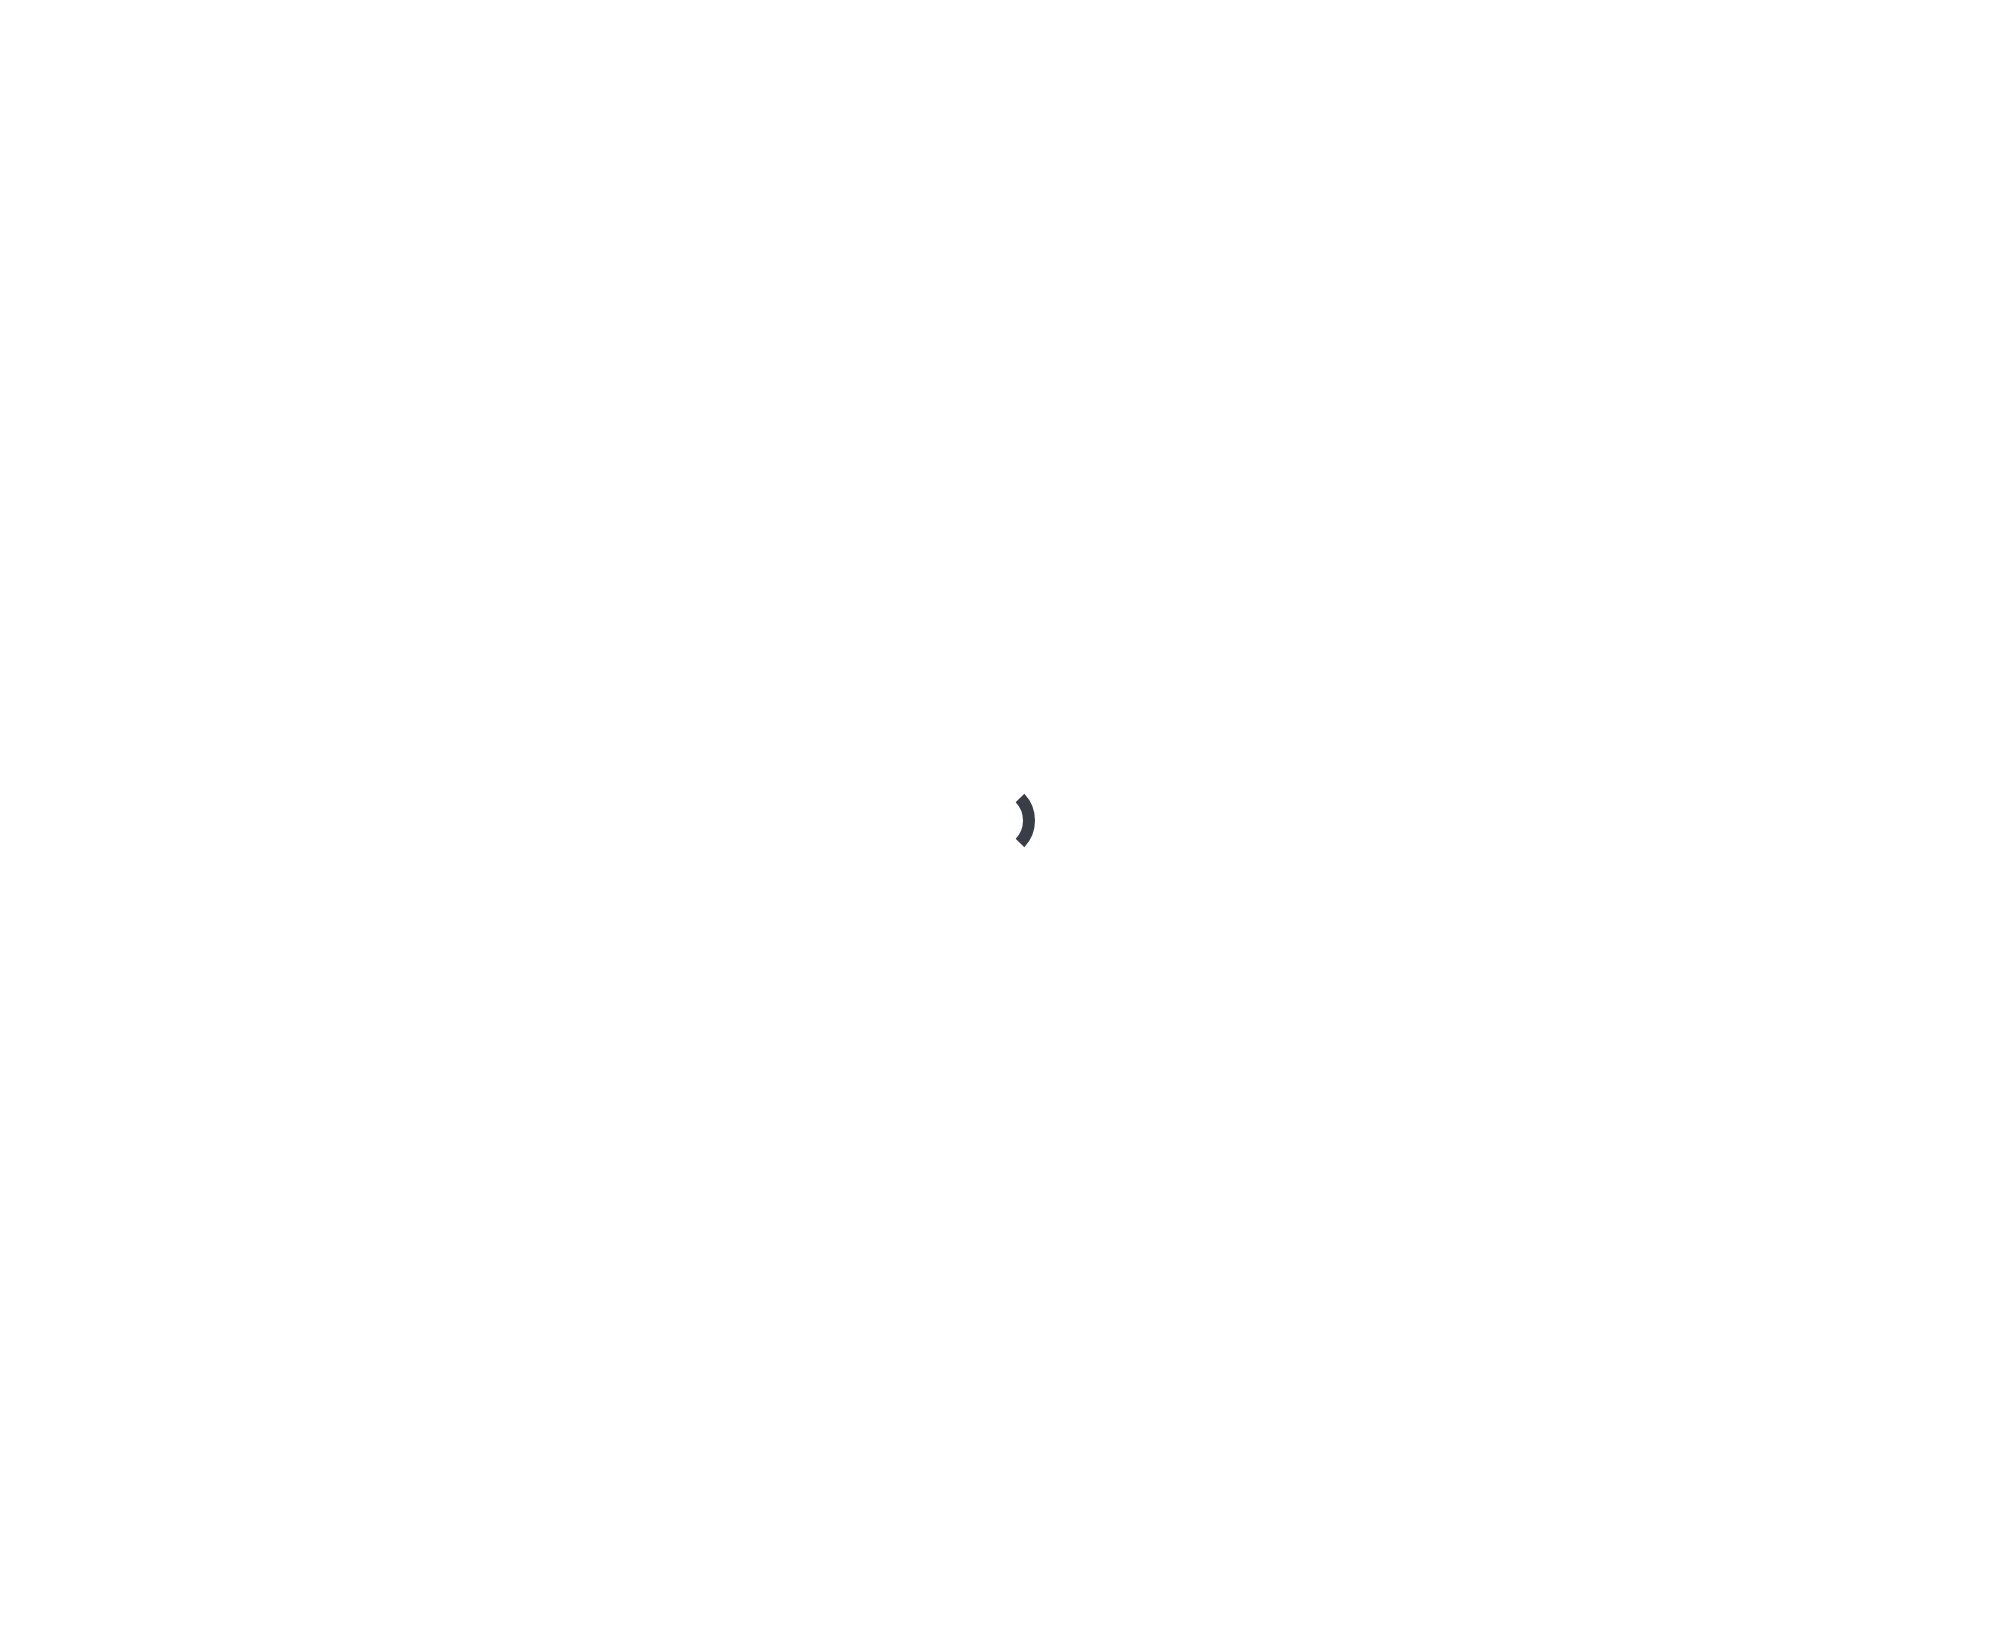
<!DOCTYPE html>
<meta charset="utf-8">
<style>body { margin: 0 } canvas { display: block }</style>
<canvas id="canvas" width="1995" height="1639"></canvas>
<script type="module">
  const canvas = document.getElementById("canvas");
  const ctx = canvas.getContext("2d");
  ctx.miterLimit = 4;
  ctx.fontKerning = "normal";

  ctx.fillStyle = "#ffffff";
  ctx.fillRect(0, 0, 1995, 1639);
  ctx.beginPath();
  ctx.moveTo(1020, 798);
  ctx.bezierCurveTo(1032, 810.5, 1032, 830.5, 1020, 843);
  ctx.moveTo(1020, 798);
  ctx.bezierCurveTo(1032, 810.5, 1032, 830.5, 1020, 843);
  ctx.moveTo(1020, 798);
  ctx.bezierCurveTo(1032, 810.5, 1032, 830.5, 1020, 843);
  ctx.strokeStyle = "#393e46";
  ctx.lineWidth = 12;
  ctx.stroke();
</script>
